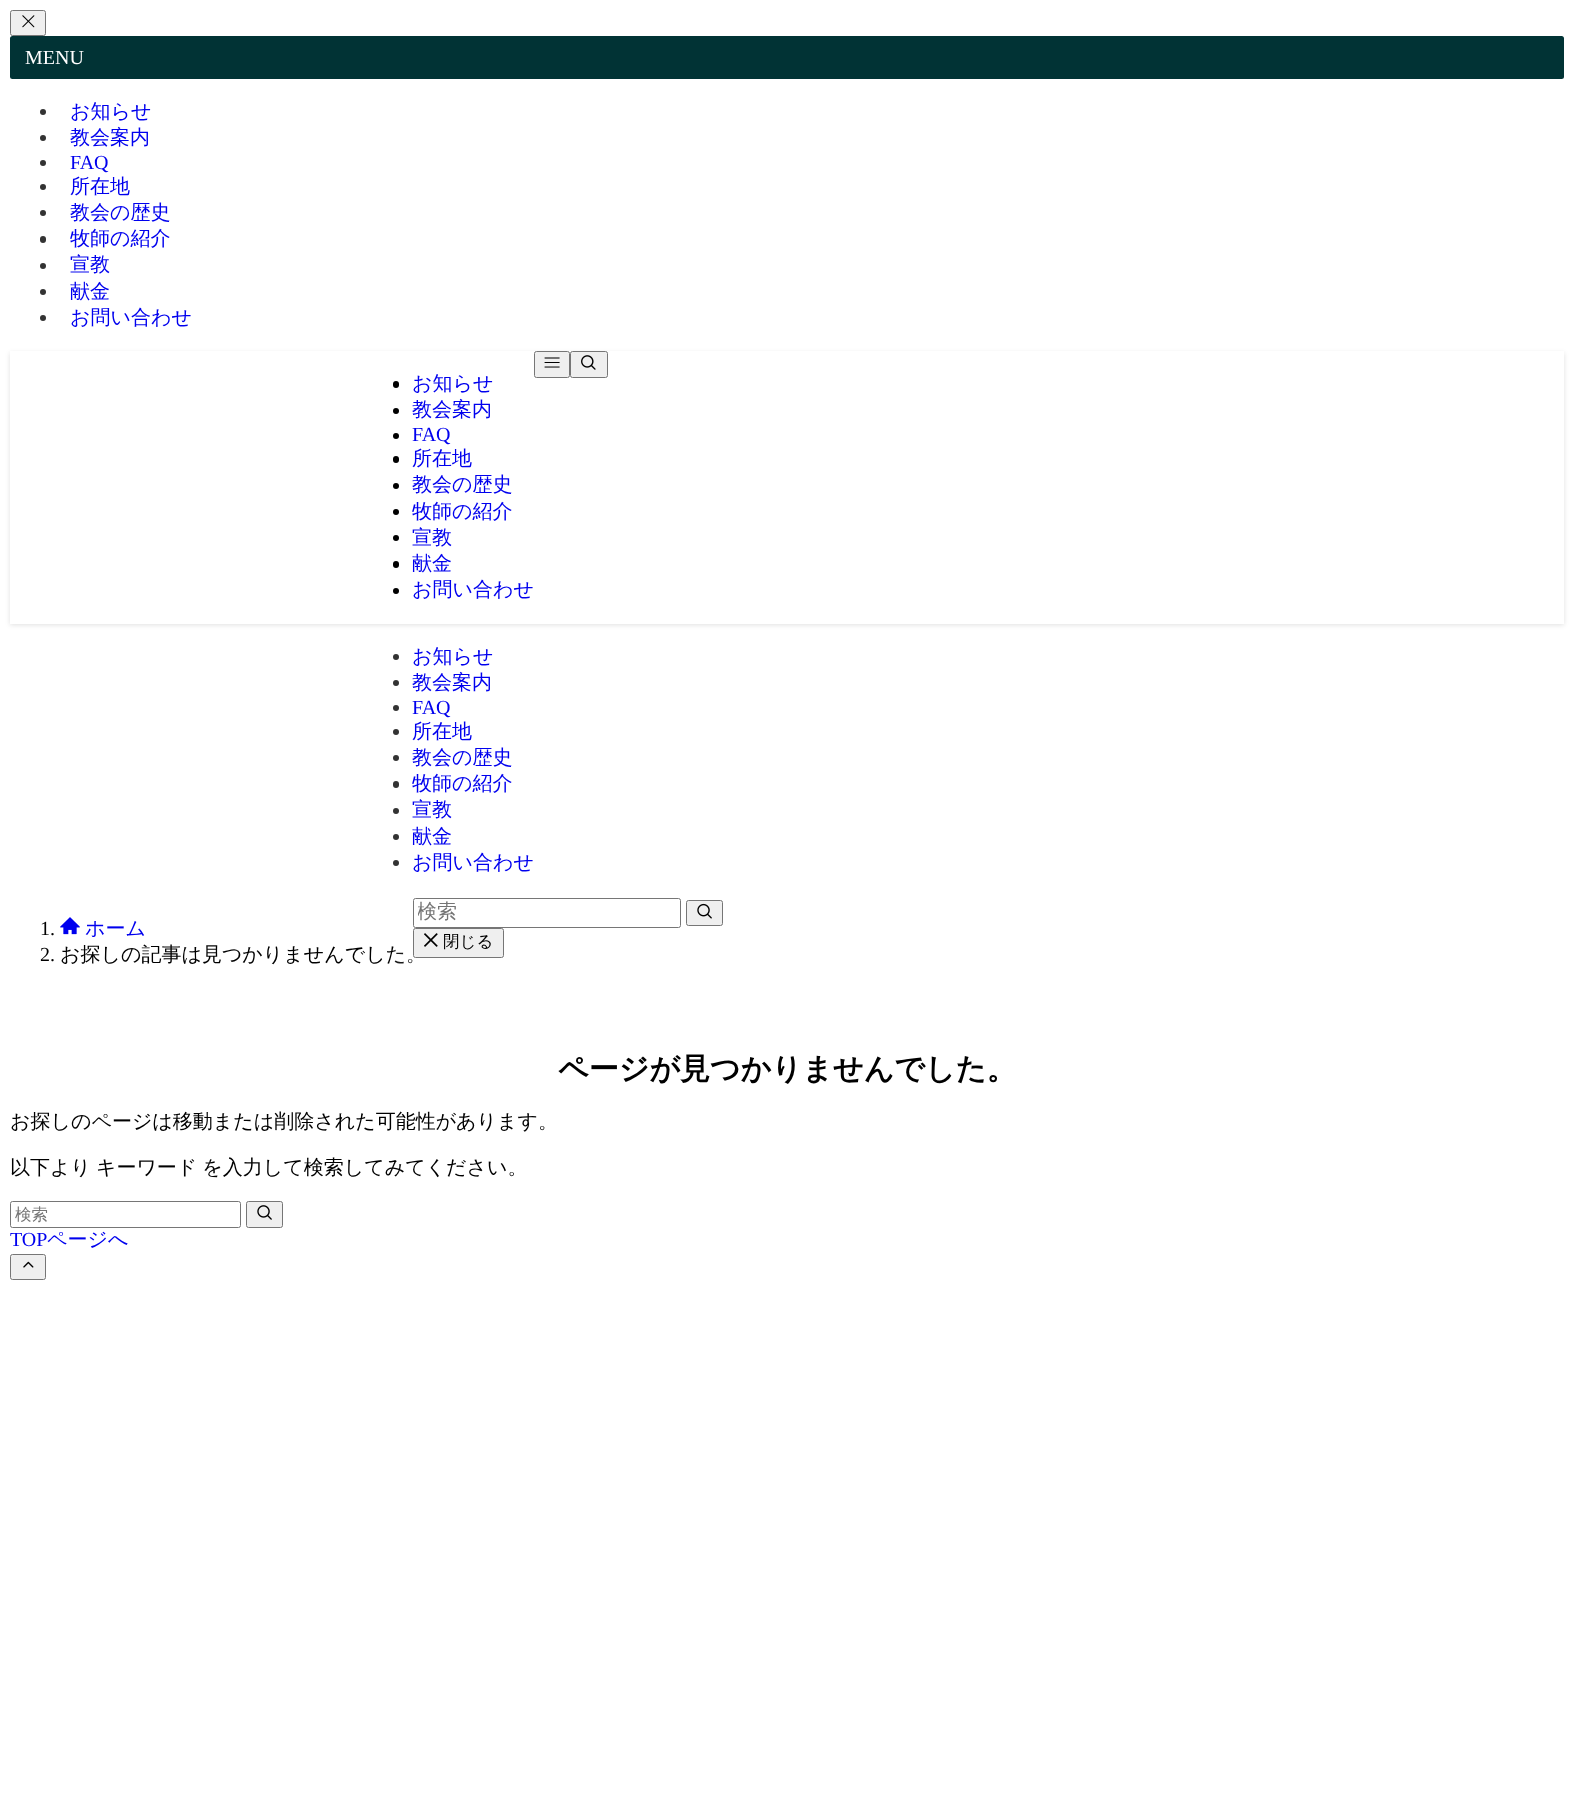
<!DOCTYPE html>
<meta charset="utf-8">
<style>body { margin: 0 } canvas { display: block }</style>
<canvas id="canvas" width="1573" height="1813"></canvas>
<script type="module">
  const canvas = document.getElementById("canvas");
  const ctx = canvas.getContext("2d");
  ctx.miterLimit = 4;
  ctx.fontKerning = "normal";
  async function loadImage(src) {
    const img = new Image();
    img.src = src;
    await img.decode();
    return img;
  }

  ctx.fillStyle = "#ffffff";
  ctx.fillRect(0, 0, 1573, 1813);
  ctx.fillStyle = "#efefef";
  ctx.beginPath();
  ctx.roundRect(10.5, 10.5, 35, 25, 2);
  ctx.fill();
  ctx.strokeStyle = "#767676";
  ctx.stroke();
  ctx.drawImage(await loadImage("img1.png"), 22, 15, 13, 13);
  ctx.fillStyle = "#013335";
  ctx.beginPath();
  ctx.roundRect(10, 36, 1554, 43, 2.5);
  ctx.fill();
  ctx.font = "20px Liberation Serif";
  ctx.fillStyle = "#ffffff";
  ctx.fillText("MENU", 25, 64);
  ctx.fillStyle = "#333333";
  ctx.beginPath();
  ctx.arc(43, 112, 3, 0, Math.PI * 2);
  ctx.fill();
  ctx.font = "500 20px WenQuanYi Zen Hei";
  ctx.fillStyle = "#0000ee";
  ctx.fillText("お知らせ", 70, 118);
  ctx.fillStyle = "#333333";
  ctx.beginPath();
  ctx.arc(43, 138, 3, 0, Math.PI * 2);
  ctx.fill();
  ctx.fillStyle = "#0000ee";
  ctx.fillText("教会案内", 70, 144);
  ctx.fillStyle = "#333333";
  ctx.beginPath();
  ctx.arc(43, 163, 3, 0, Math.PI * 2);
  ctx.fill();
  ctx.font = "20px Liberation Serif";
  ctx.fillStyle = "#0000ee";
  ctx.fillText("FAQ", 70, 169);
  ctx.fillStyle = "#333333";
  ctx.beginPath();
  ctx.arc(43, 187, 3, 0, Math.PI * 2);
  ctx.fill();
  ctx.font = "500 20px WenQuanYi Zen Hei";
  ctx.fillStyle = "#0000ee";
  ctx.fillText("所在地", 70, 193);
  ctx.fillStyle = "#333333";
  ctx.beginPath();
  ctx.arc(43, 213, 3, 0, Math.PI * 2);
  ctx.fill();
  ctx.fillStyle = "#0000ee";
  ctx.fillText("教会の歴史", 70, 219);
  ctx.fillStyle = "#333333";
  ctx.beginPath();
  ctx.roundRect(40, 236, 6, 7, 3);
  ctx.fill();
  ctx.fillStyle = "#0000ee";
  ctx.fillText("牧師の紹介", 70, 245);
  ctx.fillStyle = "#333333";
  ctx.beginPath();
  ctx.arc(43, 266, 3, 0, Math.PI * 2);
  ctx.fill();
  ctx.fillStyle = "#0000ee";
  ctx.fillText("宣教", 70, 271);
  ctx.fillStyle = "#333333";
  ctx.beginPath();
  ctx.arc(43, 292, 3, 0, Math.PI * 2);
  ctx.fill();
  ctx.fillStyle = "#0000ee";
  ctx.fillText("献金", 70, 298);
  ctx.fillStyle = "#333333";
  ctx.beginPath();
  ctx.arc(43, 318, 3, 0, Math.PI * 2);
  ctx.fill();
  ctx.fillStyle = "#0000ee";
  ctx.fillText("お問い合わせ", 70, 324);
  ctx.save();
  ctx.beginPath();
  ctx.moveTo(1, 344);
  ctx.lineTo(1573, 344);
  ctx.lineTo(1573, 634);
  ctx.lineTo(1, 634);
  ctx.closePath();
  ctx.moveTo(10, 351);
  ctx.lineTo(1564, 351);
  ctx.lineTo(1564, 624);
  ctx.lineTo(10, 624);
  ctx.closePath();
  ctx.clip("evenodd");
  ctx.fillStyle = "rgba(0, 0, 0, 0.12)";
  ctx.filter = "blur(2.5px)";
  ctx.beginPath();
  ctx.rect(10, 353, 1554, 272);
  ctx.fill();
  ctx.filter = "none";
  ctx.restore();
  ctx.fillStyle = "#efefef";
  ctx.beginPath();
  ctx.roundRect(534.5, 351.5, 35, 26, 2);
  ctx.fill();
  ctx.stroke();
  ctx.drawImage(await loadImage("img2.png"), 544, 357, 16, 11);
  ctx.beginPath();
  ctx.roundRect(570.5, 351.5, 37, 26, 2);
  ctx.fill();
  ctx.stroke();
  ctx.drawImage(await loadImage("img3.png"), 581, 355, 15, 15);
  ctx.fillStyle = "#000000";
  ctx.beginPath();
  ctx.roundRect(393, 381, 6, 7, 3);
  ctx.fill();
  ctx.fillStyle = "#0000ee";
  ctx.fillText("お知らせ", 412, 390);
  ctx.fillStyle = "#000000";
  ctx.beginPath();
  ctx.arc(396, 411, 3, 0, Math.PI * 2);
  ctx.fill();
  ctx.fillStyle = "#0000ee";
  ctx.fillText("教会案内", 412, 416);
  ctx.fillStyle = "#000000";
  ctx.beginPath();
  ctx.arc(396, 436, 3, 0, Math.PI * 2);
  ctx.fill();
  ctx.font = "20px Liberation Serif";
  ctx.fillStyle = "#0000ee";
  ctx.fillText("FAQ", 412, 441);
  ctx.fillStyle = "#000000";
  ctx.beginPath();
  ctx.roundRect(393, 456, 6, 7, 3);
  ctx.fill();
  ctx.font = "500 20px WenQuanYi Zen Hei";
  ctx.fillStyle = "#0000ee";
  ctx.fillText("所在地", 412, 465);
  ctx.fillStyle = "#000000";
  ctx.beginPath();
  ctx.arc(396, 486, 3, 0, Math.PI * 2);
  ctx.fill();
  ctx.fillStyle = "#0000ee";
  ctx.fillText("教会の歴史", 412, 491);
  ctx.fillStyle = "#000000";
  ctx.beginPath();
  ctx.arc(396, 512, 3, 0, Math.PI * 2);
  ctx.fill();
  ctx.fillStyle = "#0000ee";
  ctx.fillText("牧師の紹介", 412, 518);
  ctx.fillStyle = "#000000";
  ctx.beginPath();
  ctx.arc(396, 538, 3, 0, Math.PI * 2);
  ctx.fill();
  ctx.fillStyle = "#0000ee";
  ctx.fillText("宣教", 412, 544);
  ctx.fillStyle = "#000000";
  ctx.beginPath();
  ctx.roundRect(393, 561, 6, 7, 3);
  ctx.fill();
  ctx.fillStyle = "#0000ee";
  ctx.fillText("献金", 412, 570);
  ctx.fillStyle = "#000000";
  ctx.beginPath();
  ctx.arc(396, 591, 3, 0, Math.PI * 2);
  ctx.fill();
  ctx.fillStyle = "#0000ee";
  ctx.fillText("お問い合わせ", 412, 596);
  ctx.fillStyle = "#333333";
  ctx.beginPath();
  ctx.arc(396, 657, 3, 0, Math.PI * 2);
  ctx.fill();
  ctx.fillStyle = "#0000ee";
  ctx.fillText("お知らせ", 412, 663);
  ctx.fillStyle = "#333333";
  ctx.beginPath();
  ctx.arc(396, 683, 3, 0, Math.PI * 2);
  ctx.fill();
  ctx.fillStyle = "#0000ee";
  ctx.fillText("教会案内", 412, 689);
  ctx.fillStyle = "#333333";
  ctx.beginPath();
  ctx.arc(396, 708, 3, 0, Math.PI * 2);
  ctx.fill();
  ctx.font = "20px Liberation Serif";
  ctx.fillStyle = "#0000ee";
  ctx.fillText("FAQ", 412, 714);
  ctx.fillStyle = "#333333";
  ctx.beginPath();
  ctx.arc(396, 732, 3, 0, Math.PI * 2);
  ctx.fill();
  ctx.font = "500 20px WenQuanYi Zen Hei";
  ctx.fillStyle = "#0000ee";
  ctx.fillText("所在地", 412, 738);
  ctx.fillStyle = "#333333";
  ctx.beginPath();
  ctx.arc(396, 758, 3, 0, Math.PI * 2);
  ctx.fill();
  ctx.fillStyle = "#0000ee";
  ctx.fillText("教会の歴史", 412, 764);
  ctx.fillStyle = "#333333";
  ctx.beginPath();
  ctx.roundRect(393, 781, 6, 7, 3);
  ctx.fill();
  ctx.fillStyle = "#0000ee";
  ctx.fillText("牧師の紹介", 412, 790);
  ctx.fillStyle = "#333333";
  ctx.beginPath();
  ctx.arc(396, 811, 3, 0, Math.PI * 2);
  ctx.fill();
  ctx.fillStyle = "#0000ee";
  ctx.fillText("宣教", 412, 816);
  ctx.fillStyle = "#333333";
  ctx.beginPath();
  ctx.arc(396, 837, 3, 0, Math.PI * 2);
  ctx.fill();
  ctx.fillStyle = "#0000ee";
  ctx.fillText("献金", 412, 843);
  ctx.fillStyle = "#333333";
  ctx.beginPath();
  ctx.arc(396, 863, 3, 0, Math.PI * 2);
  ctx.fill();
  ctx.fillStyle = "#0000ee";
  ctx.fillText("お問い合わせ", 412, 869);
  ctx.font = "20px Liberation Serif";
  ctx.fillStyle = "#000000";
  ctx.fillText("1.", 40, 935);
  ctx.drawImage(await loadImage("img4.png"), 60, 917, 20, 18);
  ctx.font = "500 20px WenQuanYi Zen Hei";
  ctx.fillStyle = "#0000ee";
  ctx.fillText("ホーム", 85, 935);
  ctx.font = "20px Liberation Serif";
  ctx.fillStyle = "#000000";
  ctx.fillText("2.", 40, 961);
  ctx.font = "500 20px WenQuanYi Zen Hei";
  ctx.fillText("お探しの記事は見つかりませんでした。", 60, 961);
  ctx.fillStyle = "rgba(255, 255, 255, 0.1)";
  ctx.fillRect(393, 947, 20, 17);
  ctx.beginPath();
  ctx.roundRect(413.5, 898.5, 267, 29, 2);
  ctx.stroke();
  ctx.save();
  ctx.beginPath();
  ctx.rect(418, 900, 258, 26);
  ctx.clip();
  ctx.fillStyle = "#757575";
  ctx.fillText("検索", 417, 918);
  ctx.restore();
  ctx.fillStyle = "#efefef";
  ctx.beginPath();
  ctx.roundRect(686.5, 900.5, 36, 25, 2);
  ctx.fill();
  ctx.stroke();
  ctx.drawImage(await loadImage("img5.png"), 697, 903, 15, 16);
  ctx.beginPath();
  ctx.roundRect(413.5, 928.5, 90, 29, 2);
  ctx.fill();
  ctx.stroke();
  ctx.drawImage(await loadImage("img6.png"), 424, 933, 14, 14);
  ctx.font = "500 16.5px WenQuanYi Zen Hei";
  ctx.fillStyle = "#000000";
  ctx.fillText("閉じる", 443, 947);
  ctx.font = "bold 30px WenQuanYi Zen Hei";
  ctx.fillText("ページが見つかりませんでした。", 558, 1079);
  ctx.font = "500 20px WenQuanYi Zen Hei";
  ctx.fillText("お探しのページは移動または削除された可能性があります。", 10, 1128);
  ctx.wordSpacing = "-1px";
  ctx.fillText("以下より キーワード を入力して検索してみてください。", 10, 1174);
  ctx.beginPath();
  ctx.roundRect(10.5, 1201.5, 230, 26, 2);
  ctx.stroke();
  ctx.wordSpacing = "0px";
  ctx.font = "500 16.5px WenQuanYi Zen Hei";
  ctx.fillStyle = "#757575";
  ctx.fillText("検索", 15, 1220);
  ctx.fillStyle = "#efefef";
  ctx.beginPath();
  ctx.roundRect(246.5, 1201.5, 36, 26, 2);
  ctx.fill();
  ctx.stroke();
  ctx.drawImage(await loadImage("img7.png"), 257, 1205, 15, 15);
  ctx.font = "20px Liberation Serif";
  ctx.fillStyle = "#0000ee";
  ctx.fillText("TOP", 10, 1246);
  ctx.font = "500 20px WenQuanYi Zen Hei";
  ctx.fillText("ページへ", 47, 1246);
  ctx.fillStyle = "#efefef";
  ctx.beginPath();
  ctx.roundRect(10.5, 1254.5, 35, 25, 2);
  ctx.fill();
  ctx.stroke();
  ctx.drawImage(await loadImage("img8.png"), 23, 1261, 11, 7);
</script>
